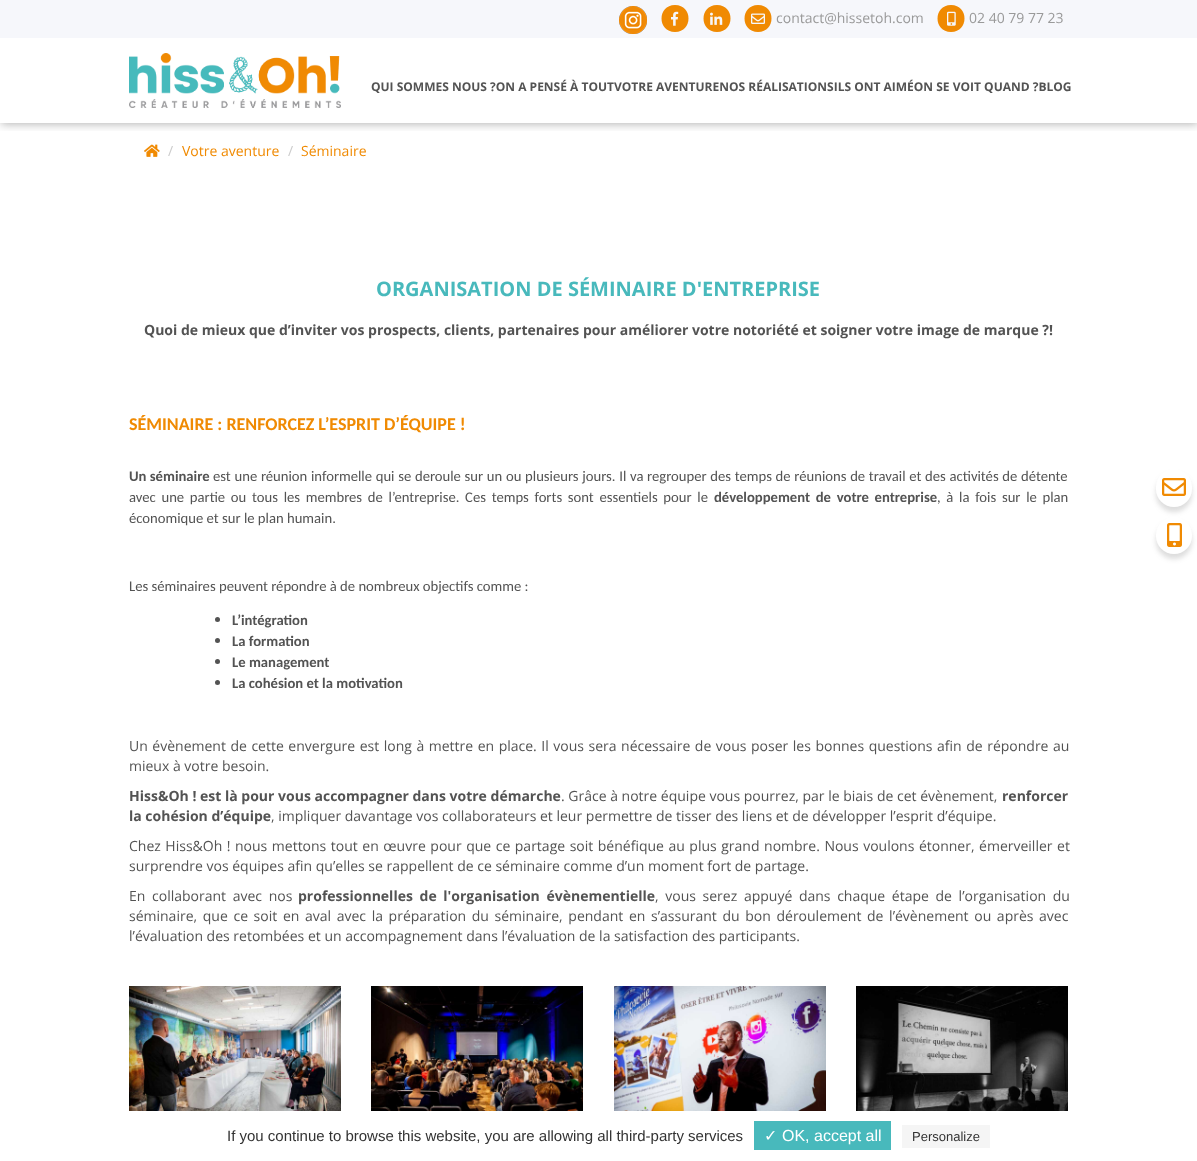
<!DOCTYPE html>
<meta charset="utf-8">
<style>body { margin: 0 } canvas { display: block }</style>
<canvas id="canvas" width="1197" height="1161"></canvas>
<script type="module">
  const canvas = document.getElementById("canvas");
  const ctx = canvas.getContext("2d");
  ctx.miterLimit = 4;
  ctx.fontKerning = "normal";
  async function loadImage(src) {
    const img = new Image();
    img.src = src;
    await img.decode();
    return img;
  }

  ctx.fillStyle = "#ffffff";
  ctx.fillRect(0, 0, 1197, 1161);
  ctx.save();
  ctx.beginPath();
  ctx.rect(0, 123, 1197, 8);
  ctx.clip();
  ctx.fillStyle = "rgba(0, 0, 0, 0.3)";
  ctx.filter = "blur(5px)";
  ctx.beginPath();
  ctx.rect(1, 1, 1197, 123);
  ctx.fill();
  ctx.filter = "none";
  ctx.restore();
  ctx.fillStyle = "#f6f7fb";
  ctx.fillRect(0, 0, 1197, 38);
  ctx.drawImage(await loadImage("img1.png"), 619, 6, 28, 28);
  ctx.fillStyle = "#f08a02";
  ctx.beginPath();
  ctx.moveTo(675, 5);
  ctx.bezierCurveTo(657, 5, 657, 32, 675, 32);
  ctx.bezierCurveTo(693, 32, 693, 5, 675, 5);
  ctx.closePath();
  ctx.fill();
  ctx.drawImage(await loadImage("img2.png"), 671, 11, 8, 15);
  ctx.beginPath();
  ctx.moveTo(717, 5);
  ctx.bezierCurveTo(699, 5, 699, 32, 717, 32);
  ctx.bezierCurveTo(735, 32, 735, 5, 717, 5);
  ctx.closePath();
  ctx.fill();
  ctx.drawImage(await loadImage("img3.png"), 710, 12, 13, 13);
  ctx.beginPath();
  ctx.moveTo(758, 5);
  ctx.bezierCurveTo(740, 5, 740, 32, 758, 32);
  ctx.bezierCurveTo(776, 32, 776, 5, 758, 5);
  ctx.closePath();
  ctx.fill();
  ctx.drawImage(await loadImage("img4.png"), 751, 13, 14, 11);
  ctx.font = "14px Open Sans";
  ctx.fillStyle = "#9a9a9a";
  ctx.fillText("contact@hissetoh.com", 776, 23);
  ctx.fillStyle = "#f08a02";
  ctx.beginPath();
  ctx.moveTo(951, 5);
  ctx.bezierCurveTo(933, 5, 933, 32, 951, 32);
  ctx.bezierCurveTo(969, 32, 969, 5, 951, 5);
  ctx.closePath();
  ctx.fill();
  ctx.drawImage(await loadImage("img5.png"), 947, 11, 9, 15);
  ctx.fillStyle = "#9a9a9a";
  ctx.fillText("02 40 79 77 23", 969, 23);
  ctx.drawImage(await loadImage("img6.png"), 129, 53, 212, 55);
  ctx.font = "bold 12px Open Sans";
  ctx.fillStyle = "#535353";
  ctx.fillText("QUI SOMMES NOUS ?ON A PENSÉ À TOUTVOTRE AVENTURENOS RÉALISATIONSILS ONT AIMÉON SE VOIT QUAND ?BLOG", 371, 91);
  ctx.drawImage(await loadImage("img7.png"), 144, 144, 16, 13);
  ctx.font = "14px Open Sans";
  ctx.fillStyle = "#cccccc";
  ctx.fillText("/", 168, 156);
  ctx.fillStyle = "#f08a02";
  ctx.fillText("Votre aventure", 182, 156);
  ctx.fillStyle = "#cccccc";
  ctx.fillText("/", 288, 156);
  ctx.fillStyle = "#f08a02";
  ctx.fillText("Séminaire", 301, 156);
  ctx.font = "bold 20px Open Sans";
  ctx.fillStyle = "#48b9bc";
  ctx.fillText("ORGANISATION DE SÉMINAIRE D'ENTREPRISE", 376, 296);
  ctx.font = "bold 14px Open Sans";
  ctx.fillStyle = "#535353";
  ctx.fillText("Quoi de mieux que d’inviter vos prospects, clients, partenaires pour améliorer votre notoriété et soigner votre image de marque ?!", 144, 335);
  ctx.font = "bold 18px Carlito";
  ctx.fillStyle = "#f08a02";
  ctx.fillText("SÉMINAIRE : RENFORCEZ L’ESPRIT D’ÉQUIPE !", 129, 430);
  ctx.font = "bold 14.67px Carlito";
  ctx.fillStyle = "#535353";
  ctx.fillText("Un séminaire", 129, 481);
  ctx.wordSpacing = "0.4px";
  ctx.font = "14.67px Carlito";
  ctx.fillText("est une réunion informelle qui se deroule sur un ou plusieurs jours. Il va regrouper des temps de réunions de travail et des activités de détente", 213, 481);
  ctx.wordSpacing = "2.4px";
  ctx.fillText("avec une partie ou tous les membres de l’entreprise. Ces temps forts sont essentiels pour le", 129, 502);
  ctx.font = "bold 14.67px Carlito";
  ctx.fillText("développement de votre entreprise", 714, 502);
  ctx.font = "14.67px Carlito";
  ctx.fillText(", à la fois sur le plan", 937, 502);
  ctx.wordSpacing = "0px";
  ctx.fillText("économique et sur le plan humain.", 129, 523);
  ctx.fillText("Les séminaires peuvent répondre à de nombreux objectifs comme :", 129, 591);
  ctx.beginPath();
  ctx.arc(217.5, 619.5, 2.5, 0, Math.PI * 2);
  ctx.fill();
  ctx.font = "bold 14.67px Carlito";
  ctx.fillText("L’intégration", 232, 625);
  ctx.beginPath();
  ctx.arc(217.5, 640.5, 2.5, 0, Math.PI * 2);
  ctx.fill();
  ctx.fillText("La formation", 232, 646);
  ctx.beginPath();
  ctx.arc(217.5, 661.5, 2.5, 0, Math.PI * 2);
  ctx.fill();
  ctx.fillText("Le management", 232, 667);
  ctx.beginPath();
  ctx.arc(217.5, 682.5, 2.5, 0, Math.PI * 2);
  ctx.fill();
  ctx.fillText("La cohésion et la motivation", 232, 688);
  ctx.wordSpacing = "0.9px";
  ctx.font = "14px Open Sans";
  ctx.fillText("Un évènement de cette envergure est long à mettre en place. Il vous sera nécessaire de vous poser les bonnes questions afin de répondre au", 129, 751);
  ctx.wordSpacing = "0px";
  ctx.fillText("mieux à votre besoin.", 129, 771);
  ctx.font = "bold 14px Open Sans";
  ctx.fillText("Hiss&Oh ! est là pour vous accompagner dans votre démarche", 129, 801);
  ctx.font = "14px Open Sans";
  ctx.fillText(". Grâce à notre équipe vous pourrez, par le biais de cet évènement,", 561, 801);
  ctx.font = "bold 14px Open Sans";
  ctx.fillText("renforcer", 1002, 801);
  ctx.fillText("la cohésion d’équipe", 129, 821);
  ctx.font = "14px Open Sans";
  ctx.fillText(", impliquer davantage vos collaborateurs et leur permettre de tisser des liens et de développer l’esprit d’équipe.", 271, 821);
  ctx.wordSpacing = "0.9px";
  ctx.fillText("Chez Hiss&Oh ! nous mettons tout en œuvre pour que ce partage soit bénéfique au plus grand nombre. Nous voulons étonner, émerveiller et", 129, 851);
  ctx.wordSpacing = "0px";
  ctx.fillText("surprendre vos équipes afin qu’elles se rappellent de ce séminaire comme d’un moment fort de partage.", 129, 871);
  ctx.wordSpacing = "3px";
  ctx.fillText("En collaborant avec nos", 129, 901);
  ctx.font = "bold 14px Open Sans";
  ctx.fillText("professionnelles de l'organisation évènementielle", 298, 901);
  ctx.font = "14px Open Sans";
  ctx.fillText(", vous serez appuyé dans chaque étape de l’organisation du", 655, 901);
  ctx.wordSpacing = "2px";
  ctx.fillText("séminaire, que ce soit en aval avec la préparation du séminaire, pendant en s’assurant du bon déroulement de l’évènement ou après avec", 129, 921);
  ctx.wordSpacing = "0px";
  ctx.fillText("l’évaluation des retombées et un accompagnement dans l’évaluation de la satisfaction des participants.", 129, 941);
  ctx.drawImage(await loadImage("img8.png"), 129, 986, 212, 125);
  ctx.drawImage(await loadImage("img9.png"), 371, 986, 212, 125);
  ctx.drawImage(await loadImage("img10.png"), 614, 986, 212, 125);
  ctx.drawImage(await loadImage("img11.png"), 856, 986, 212, 125);
  ctx.fillStyle = "rgba(83, 83, 83, 0.2)";
  ctx.filter = "blur(2.5px)";
  ctx.beginPath();
  ctx.roundRect(1156, 474, 36, 38, 18);
  ctx.fill();
  ctx.filter = "none";
  ctx.fillStyle = "#ffffff";
  ctx.beginPath();
  ctx.roundRect(1156, 469, 36, 38, 18);
  ctx.fill();
  ctx.drawImage(await loadImage("img12.png"), 1162, 478, 24, 18);
  ctx.fillStyle = "rgba(83, 83, 83, 0.2)";
  ctx.filter = "blur(2.5px)";
  ctx.beginPath();
  ctx.roundRect(1156, 522, 36, 37, 18);
  ctx.fill();
  ctx.filter = "none";
  ctx.fillStyle = "#ffffff";
  ctx.beginPath();
  ctx.roundRect(1156, 517, 36, 37, 18);
  ctx.fill();
  ctx.drawImage(await loadImage("img13.png"), 1167, 523, 15, 24);
  ctx.font = "15px Liberation Sans";
  ctx.fillStyle = "#333333";
  ctx.fillText("If you continue to browse this website, you are allowing all third-party services", 227, 1141);
  ctx.fillStyle = "#48b9bc";
  ctx.fillRect(754, 1121, 137, 29);
  ctx.font = "16px DejaVu Sans";
  ctx.fillStyle = "#ffffff";
  ctx.fillText("✓", 764, 1141);
  ctx.font = "16px Liberation Sans";
  ctx.fillText("OK, accept all", 782, 1141);
  ctx.fillStyle = "#f5f5f5";
  ctx.fillRect(902, 1125, 88, 23);
  ctx.font = "13px Liberation Sans";
  ctx.fillStyle = "#333333";
  ctx.fillText("Personalize", 912, 1141);
</script>
